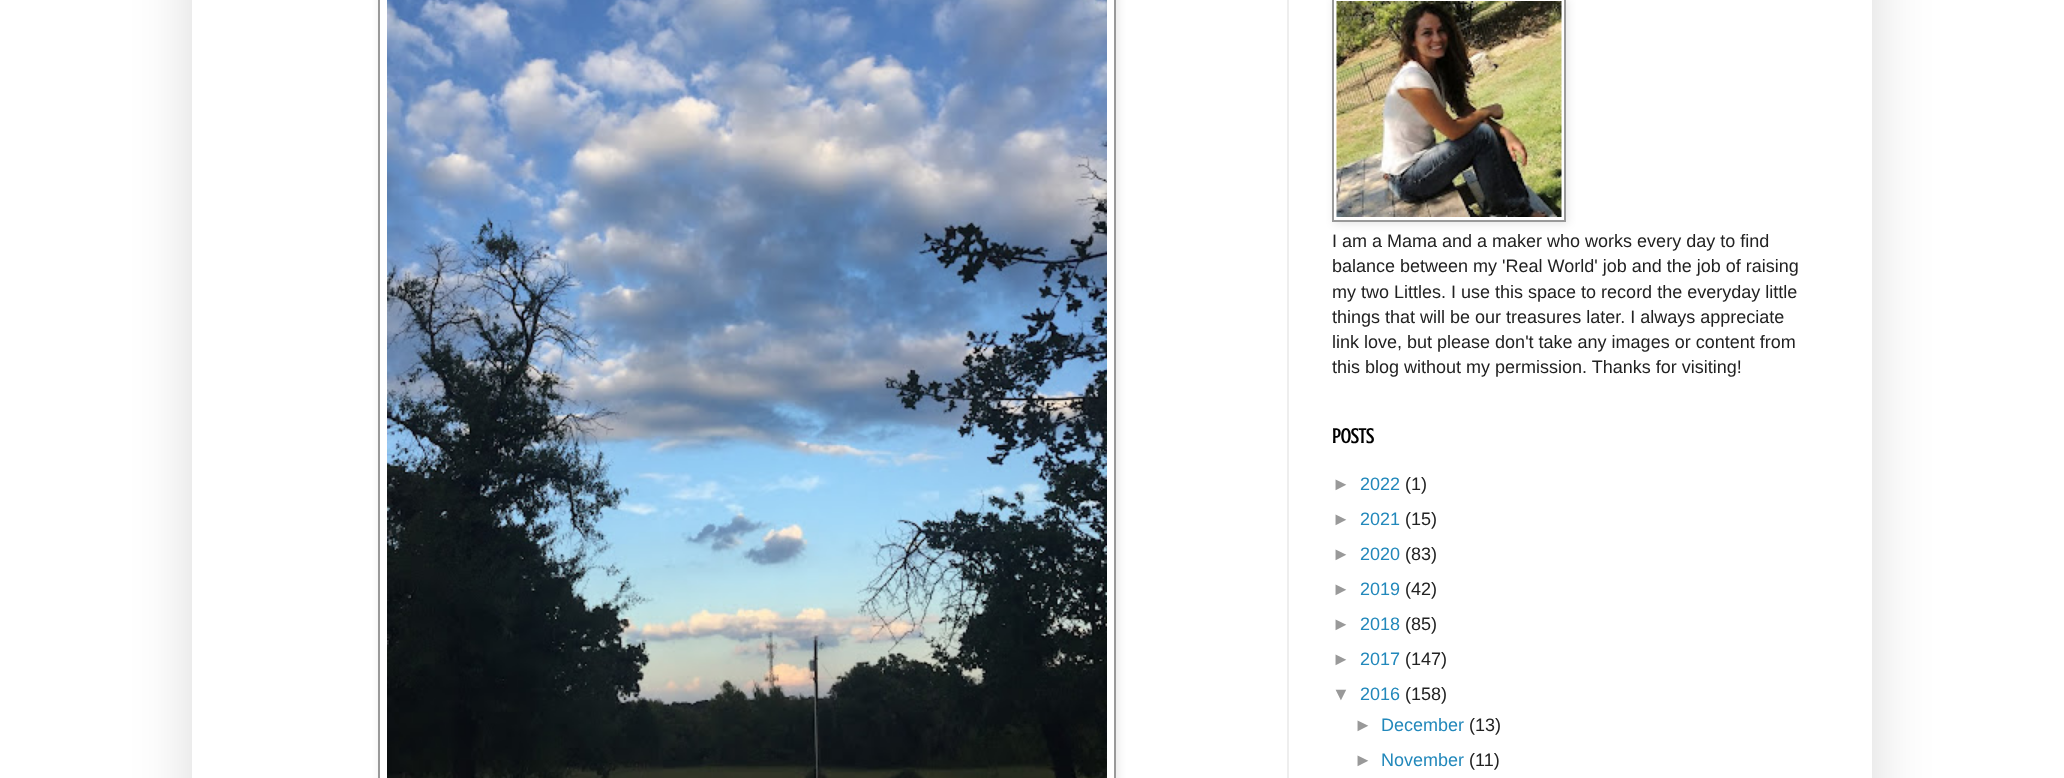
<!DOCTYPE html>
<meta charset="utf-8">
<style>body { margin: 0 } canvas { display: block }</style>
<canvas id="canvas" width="2064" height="778"></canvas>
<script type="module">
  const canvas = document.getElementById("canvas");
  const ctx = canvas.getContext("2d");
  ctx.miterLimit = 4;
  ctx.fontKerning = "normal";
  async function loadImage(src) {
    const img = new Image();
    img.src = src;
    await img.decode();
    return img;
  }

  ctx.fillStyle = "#ffffff";
  ctx.fillRect(0, 0, 2064, 778);
  ctx.save();
  ctx.beginPath();
  ctx.moveTo(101, 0);
  ctx.lineTo(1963, 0);
  ctx.lineTo(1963, 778);
  ctx.lineTo(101, 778);
  ctx.closePath();
  ctx.moveTo(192, -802);
  ctx.lineTo(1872, -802);
  ctx.lineTo(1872, 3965);
  ctx.lineTo(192, 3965);
  ctx.closePath();
  ctx.clip("evenodd");
  ctx.fillStyle = "rgba(0, 0, 0, 0.15)";
  ctx.filter = "blur(30px)";
  ctx.beginPath();
  ctx.rect(192, -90, 1680, 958);
  ctx.fill();
  ctx.filter = "none";
  ctx.restore();
  ctx.fillStyle = "#eeeeee";
  ctx.fillRect(1287, 0, 2, 778);
  ctx.save();
  ctx.beginPath();
  ctx.moveTo(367, 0);
  ctx.lineTo(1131, 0);
  ctx.lineTo(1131, 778);
  ctx.lineTo(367, 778);
  ctx.closePath();
  ctx.moveTo(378, -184);
  ctx.lineTo(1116, -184);
  ctx.lineTo(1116, 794);
  ctx.lineTo(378, 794);
  ctx.closePath();
  ctx.clip("evenodd");
  ctx.fillStyle = "rgba(0, 0, 0, 0.1)";
  ctx.filter = "blur(4px)";
  ctx.beginPath();
  ctx.rect(380, -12, 738, 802);
  ctx.fill();
  ctx.filter = "none";
  ctx.restore();
  ctx.strokeStyle = "#999999";
  ctx.lineWidth = 2;
  ctx.strokeRect(379, -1, 736, 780);
  ctx.drawImage(await loadImage("img1.png"), 387, 0, 720, 778);
  ctx.save();
  ctx.beginPath();
  ctx.moveTo(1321, 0);
  ctx.lineTo(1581, 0);
  ctx.lineTo(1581, 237);
  ctx.lineTo(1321, 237);
  ctx.closePath();
  ctx.moveTo(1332, -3);
  ctx.lineTo(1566, -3);
  ctx.lineTo(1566, 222);
  ctx.lineTo(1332, 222);
  ctx.closePath();
  ctx.clip("evenodd");
  ctx.fillStyle = "rgba(0, 0, 0, 0.1)";
  ctx.filter = "blur(4px)";
  ctx.beginPath();
  ctx.rect(1334, -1, 234, 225);
  ctx.fill();
  ctx.filter = "none";
  ctx.restore();
  ctx.strokeRect(1333, -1, 232, 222);
  ctx.drawImage(await loadImage("img2.png"), 1336, 1, 226, 216);
  ctx.font = "18px Liberation Sans";
  ctx.fillStyle = "#222222";
  ctx.fillText("I am a Mama and a maker who works every day to find", 1332, 247);
  ctx.fillText("balance between my 'Real World' job and the job of raising", 1332, 272);
  ctx.fillText("my two Littles. I use this space to record the everyday little", 1332, 298);
  ctx.fillText("things that will be our treasures later. I always appreciate", 1332, 323);
  ctx.fillText("link love, but please don't take any images or content from", 1332, 348);
  ctx.fillText("this blog without my permission. Thanks for visiting!", 1332, 373);
  ctx.font = "bold 21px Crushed";
  ctx.fillStyle = "#000000";
  ctx.fillText("Posts", 1332, 443);
  ctx.font = "18px Liberation Sans";
  ctx.fillStyle = "#999999";
  ctx.fillText("►", 1332, 490);
  ctx.fillStyle = "#2288bb";
  ctx.fillText("2022", 1360, 490);
  ctx.fillStyle = "#222222";
  ctx.fillText("(1)", 1405, 490);
  ctx.fillStyle = "#999999";
  ctx.fillText("►", 1332, 525);
  ctx.fillStyle = "#2288bb";
  ctx.fillText("2021", 1360, 525);
  ctx.fillStyle = "#222222";
  ctx.fillText("(15)", 1405, 525);
  ctx.fillStyle = "#999999";
  ctx.fillText("►", 1332, 560);
  ctx.fillStyle = "#2288bb";
  ctx.fillText("2020", 1360, 560);
  ctx.fillStyle = "#222222";
  ctx.fillText("(83)", 1405, 560);
  ctx.fillStyle = "#999999";
  ctx.fillText("►", 1332, 595);
  ctx.fillStyle = "#2288bb";
  ctx.fillText("2019", 1360, 595);
  ctx.fillStyle = "#222222";
  ctx.fillText("(42)", 1405, 595);
  ctx.fillStyle = "#999999";
  ctx.fillText("►", 1332, 630);
  ctx.fillStyle = "#2288bb";
  ctx.fillText("2018", 1360, 630);
  ctx.fillStyle = "#222222";
  ctx.fillText("(85)", 1405, 630);
  ctx.fillStyle = "#999999";
  ctx.fillText("►", 1332, 665);
  ctx.fillStyle = "#2288bb";
  ctx.fillText("2017", 1360, 665);
  ctx.fillStyle = "#222222";
  ctx.fillText("(147)", 1405, 665);
  ctx.fillStyle = "#999999";
  ctx.fillText("▼", 1332, 700);
  ctx.fillStyle = "#2288bb";
  ctx.fillText("2016", 1360, 700);
  ctx.fillStyle = "#222222";
  ctx.fillText("(158)", 1405, 700);
  ctx.fillStyle = "#999999";
  ctx.fillText("►", 1354, 731);
  ctx.fillStyle = "#2288bb";
  ctx.fillText("December", 1381, 731);
  ctx.fillStyle = "#222222";
  ctx.fillText("(13)", 1469, 731);
  ctx.fillStyle = "#999999";
  ctx.fillText("►", 1354, 766);
  ctx.fillStyle = "#2288bb";
  ctx.fillText("November", 1381, 766);
  ctx.fillStyle = "#222222";
  ctx.fillText("(11)", 1469, 766);
</script>
